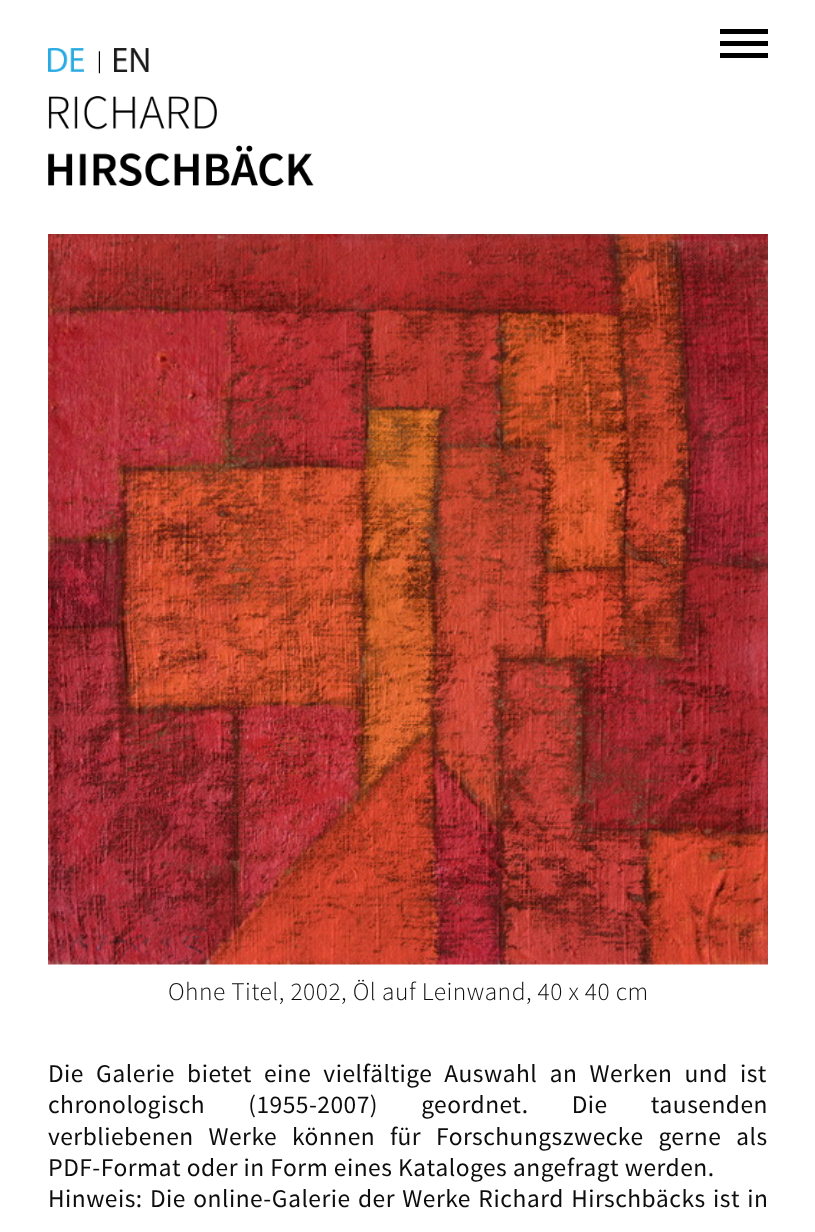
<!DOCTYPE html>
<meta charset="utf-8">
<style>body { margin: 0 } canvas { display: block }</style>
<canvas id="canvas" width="815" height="1232"></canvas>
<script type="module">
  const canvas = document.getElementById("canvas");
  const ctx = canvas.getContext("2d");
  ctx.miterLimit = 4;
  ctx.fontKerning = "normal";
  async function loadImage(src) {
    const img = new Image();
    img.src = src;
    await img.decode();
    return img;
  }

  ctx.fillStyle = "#ffffff";
  ctx.fillRect(0, 0, 815, 1232);
  ctx.fillStyle = "#000000";
  ctx.fillRect(720, 29, 48, 5);
  ctx.fillRect(720, 41, 48, 5);
  ctx.fillRect(720, 53, 48, 5);
  ctx.drawImage(await loadImage("img1.png"), 48, 48, 36, 24);
  ctx.font = "24px Liberation Serif";
  ctx.fillText("|", 97, 68);
  ctx.drawImage(await loadImage("img2.png"), 114, 48, 35, 24);
  ctx.drawImage(await loadImage("img3.png"), 48, 96, 266, 90);
  ctx.drawImage(await loadImage("img4.png"), 48, 234, 720, 731);
  ctx.letterSpacing = "0.48px";
  ctx.font = "300 25.45px Source Sans Pro";
  ctx.fillStyle = "#0d0d0d";
  ctx.fillText("Ohne Titel, 2002, Öl auf Leinwand, 40 x 40 cm", 168, 1000);
  ctx.wordSpacing = "6.5px";
  ctx.font = "25.45px Source Sans Pro";
  ctx.fillText("Die Galerie bietet eine vielfältige Auswahl an Werken und ist", 48, 1082);
  ctx.wordSpacing = "37.5px";
  ctx.fillText("chronologisch (1955-2007) geordnet. Die tausenden", 48, 1113);
  ctx.wordSpacing = "9.25px";
  ctx.fillText("verbliebenen Werke können für Forschungszwecke gerne als", 48, 1145);
  ctx.wordSpacing = "0px";
  ctx.fillText("PDF-Format oder in Form eines Kataloges angefragt werden.", 48, 1176);
  ctx.wordSpacing = "1.75px";
  ctx.fillText("Hinweis: Die online-Galerie der Werke Richard Hirschbäcks ist in", 48, 1207);
</script>
